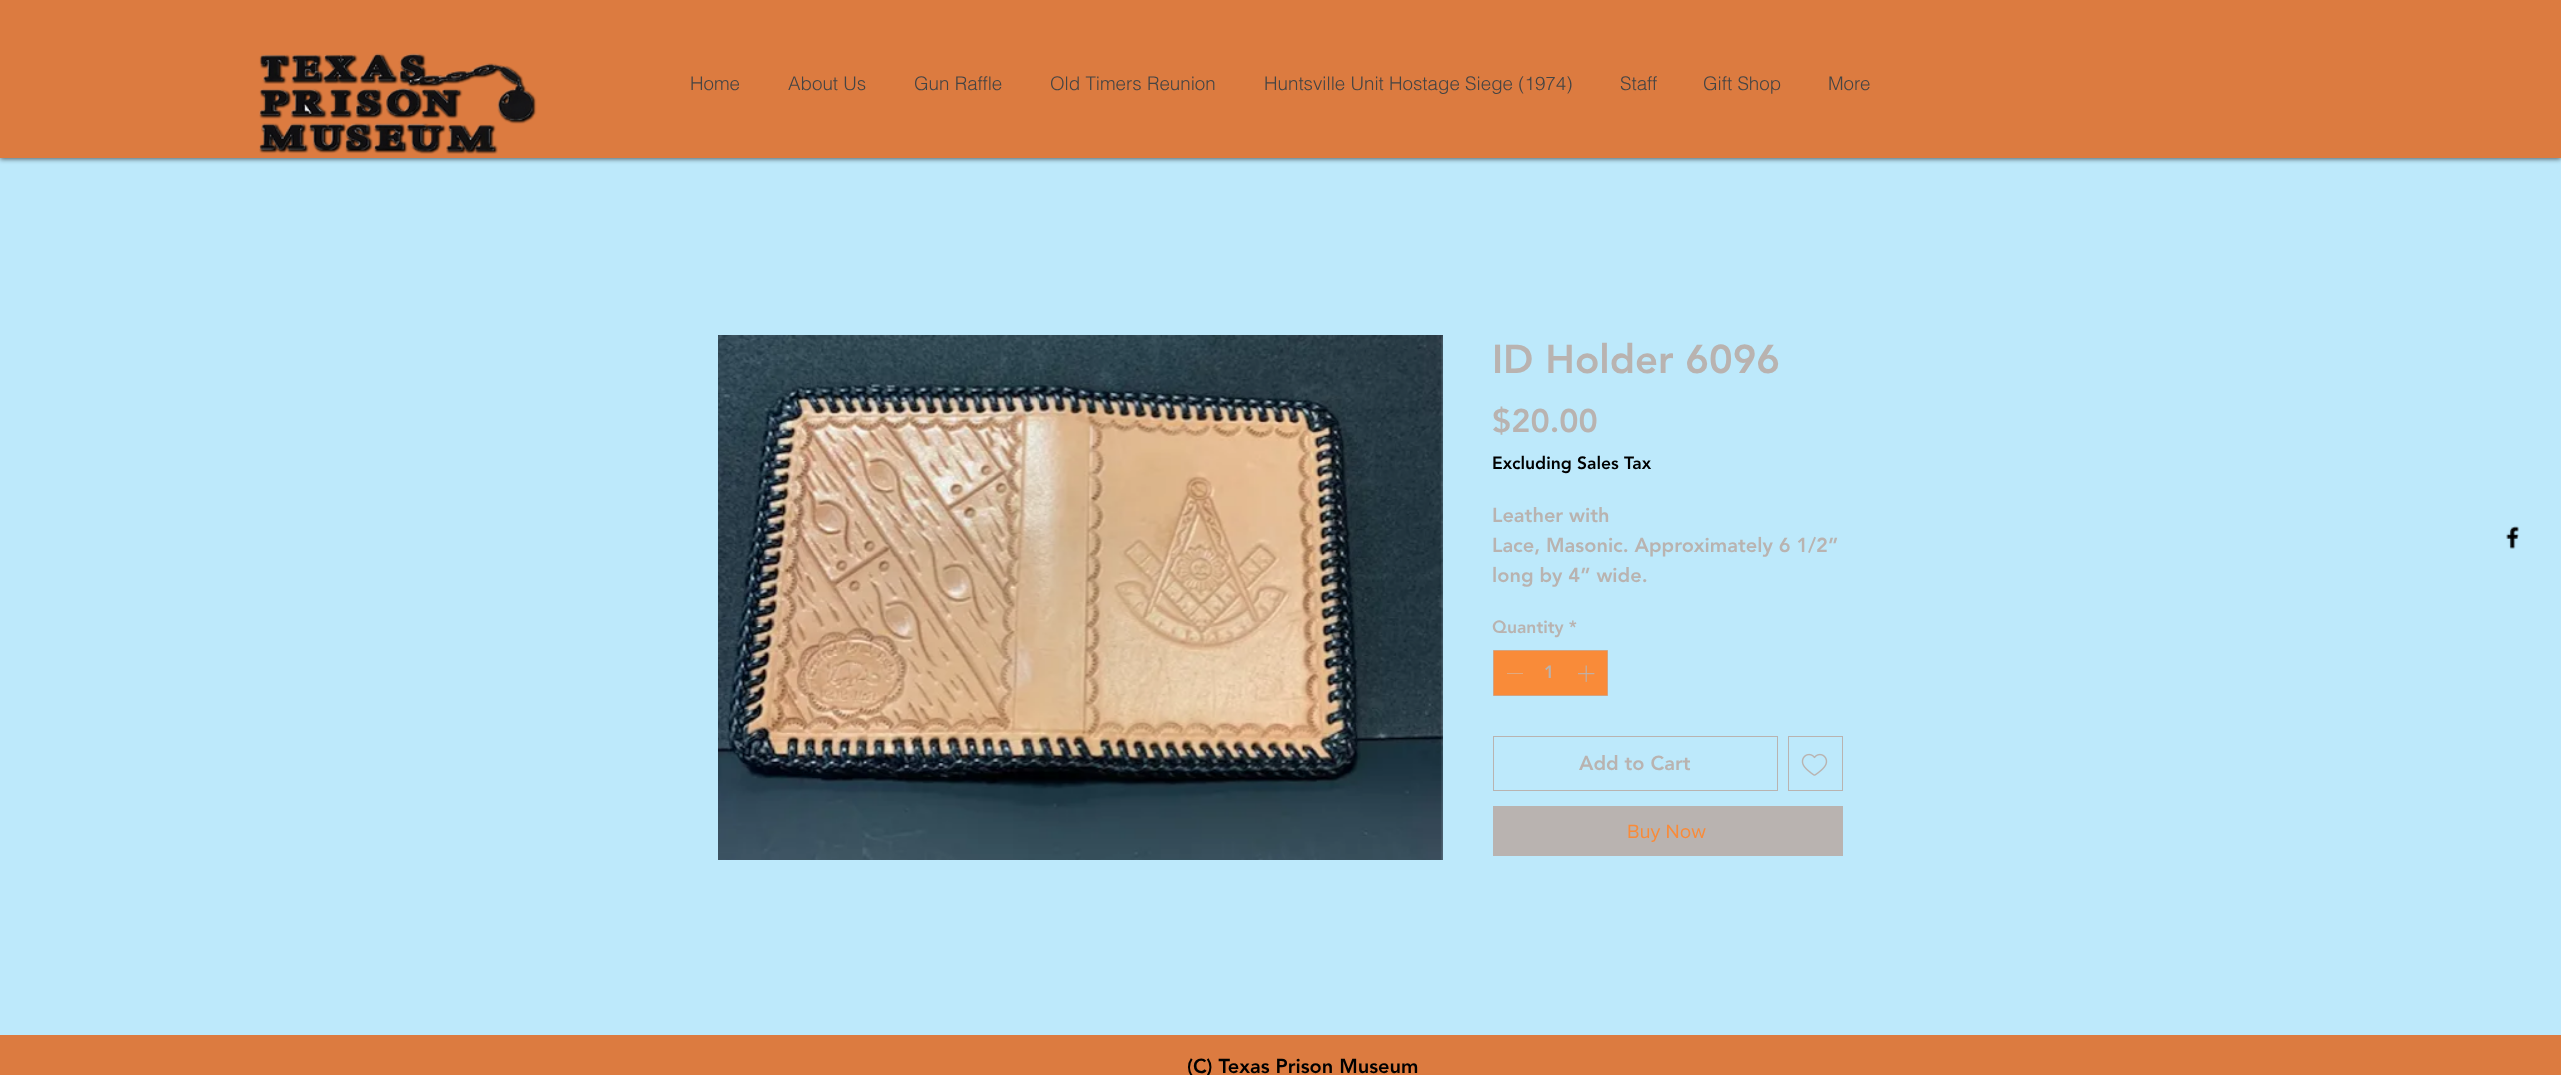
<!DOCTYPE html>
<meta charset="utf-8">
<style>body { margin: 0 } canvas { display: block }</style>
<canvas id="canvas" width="2561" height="1075"></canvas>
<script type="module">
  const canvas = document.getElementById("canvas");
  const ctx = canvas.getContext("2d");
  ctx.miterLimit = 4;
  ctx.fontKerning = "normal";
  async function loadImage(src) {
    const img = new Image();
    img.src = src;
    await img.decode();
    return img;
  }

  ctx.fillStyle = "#bde9fb";
  ctx.fillRect(0, 0, 2561, 1075);
  ctx.fillStyle = "rgba(0, 0, 0, 0.6)";
  ctx.filter = "blur(2.5px)";
  ctx.beginPath();
  ctx.rect(0, 1, 2561, 158);
  ctx.fill();
  ctx.filter = "none";
  ctx.fillStyle = "#dc7b40";
  ctx.fillRect(0, 0, 2561, 158);
  ctx.drawImage(await loadImage("img1.png"), 259, 53, 278, 101);
  ctx.font = "300 18.75px helvetica";
  ctx.fillStyle = "#444444";
  ctx.fillText("Home", 690, 90);
  ctx.fillText("About Us", 788, 90);
  ctx.fillText("Gun Raffle", 914, 90);
  ctx.fillText("Old Timers Reunion", 1050, 90);
  ctx.fillText("Huntsville Unit Hostage Siege (1974)", 1264, 90);
  ctx.fillText("Staff", 1620, 90);
  ctx.fillText("Gift Shop", 1703, 90);
  ctx.fillText("More", 1828, 90);
  ctx.drawImage(await loadImage("img2.png"), 718, 335, 725, 525);
  ctx.font = "900 40px 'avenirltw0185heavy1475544'";
  ctx.fillStyle = "#b9b3b0";
  ctx.fillText("ID Holder 6096", 1492, 373);
  ctx.font = "900 32.5px 'avenirltw0185heavy1475544'";
  ctx.fillText("$20.00", 1492, 432);
  ctx.font = "900 17.5px 'avenirltw0185heavy1475544'";
  ctx.fillStyle = "#000000";
  ctx.fillText("Excluding Sales Tax", 1492, 469);
  ctx.font = "900 20px 'avenirltw0185heavy1475544'";
  ctx.fillStyle = "#b9b3b0";
  ctx.fillText("Leather with", 1492, 522);
  ctx.fillText("Lace, Masonic. Approximately 6 1/2”", 1492, 552);
  ctx.fillText("long by 4” wide.", 1492, 582);
  ctx.font = "900 17.5px 'avenirltw0185heavy1475544'";
  ctx.fillText("Quantity *", 1492, 633);
  ctx.fillStyle = "#f98b39";
  ctx.beginPath();
  ctx.rect(1493.5, 650.5, 114, 45);
  ctx.fill();
  ctx.strokeStyle = "#d3a380";
  ctx.stroke();
  ctx.fillStyle = "#e0a980";
  ctx.fillRect(1507, 673, 16, 1);
  ctx.fillStyle = "#b9b3b0";
  ctx.fillText("1", 1544, 678);
  ctx.drawImage(await loadImage("img3.png"), 1578, 665, 17, 17);
  ctx.strokeStyle = "#b9b3b0";
  ctx.strokeRect(1493.5, 736.5, 284, 54);
  ctx.font = "900 20px 'avenirltw0185heavy1475544'";
  ctx.fillText("Add to Cart", 1579, 770);
  ctx.strokeRect(1788.5, 736.5, 54, 54);
  ctx.drawImage(await loadImage("img4.png"), 1801, 753, 27, 23);
  ctx.fillRect(1493, 806, 350, 50);
  ctx.font = "20px 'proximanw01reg'";
  ctx.fillStyle = "#f98b39";
  ctx.fillText("Buy Now", 1627, 838);
  ctx.drawImage(await loadImage("img5.png"), 2506, 526, 13, 23);
  ctx.fillStyle = "#dc7b40";
  ctx.fillRect(0, 1035, 2561, 40);
  ctx.font = "900 20px 'avenirltw0185heavy1475544'";
  ctx.fillStyle = "#000000";
  ctx.fillText("(C) Texas Prison Museum", 1187, 1073);
</script>
